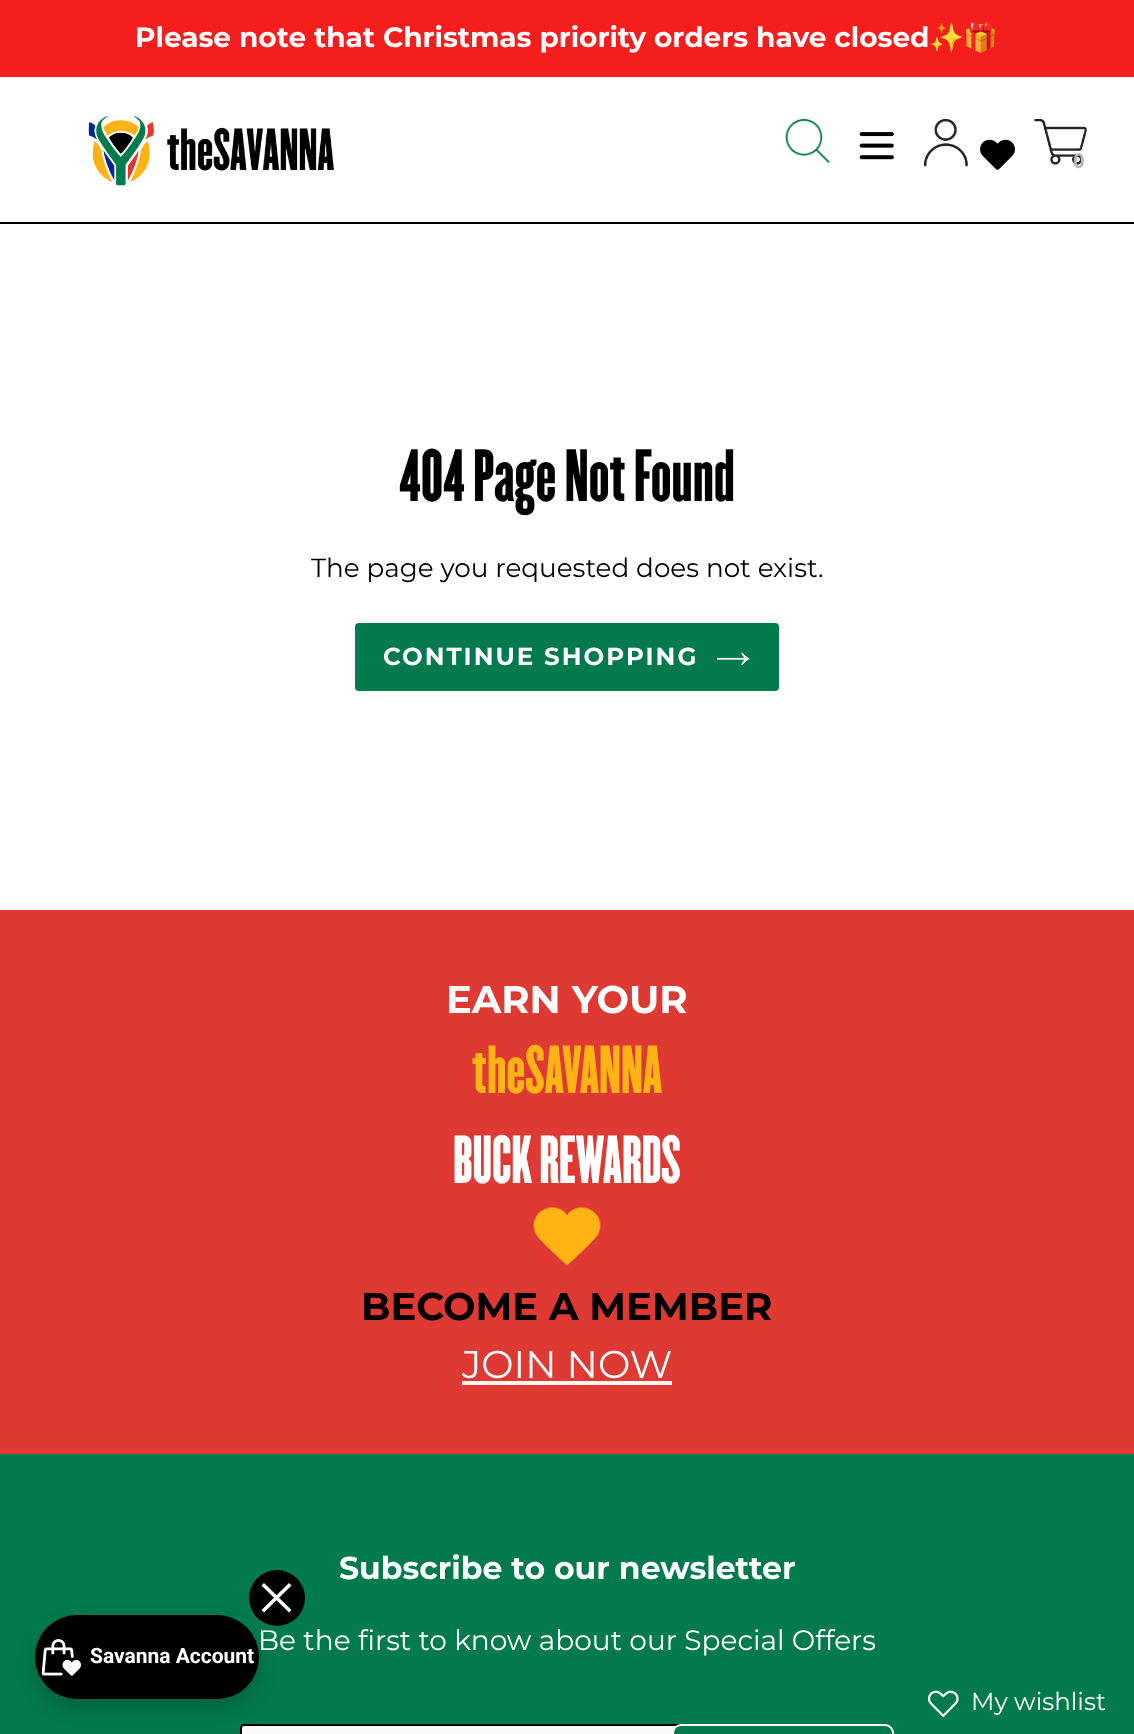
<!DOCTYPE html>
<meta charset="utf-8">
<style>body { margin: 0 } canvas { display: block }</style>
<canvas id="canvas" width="1134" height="1734"></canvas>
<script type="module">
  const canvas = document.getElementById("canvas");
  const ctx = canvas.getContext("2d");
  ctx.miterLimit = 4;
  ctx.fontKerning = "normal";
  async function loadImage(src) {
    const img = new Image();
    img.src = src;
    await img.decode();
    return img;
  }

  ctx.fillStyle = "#ffffff";
  ctx.fillRect(0, 0, 1134, 1734);
  ctx.fillStyle = "#f51e1e";
  ctx.fillRect(0, 0, 1134, 77);
  ctx.font = "bold 28px Montserrat";
  ctx.fillStyle = "#ffffff";
  ctx.fillText("Please note that Christmas priority orders have closed", 135, 47);
  ctx.font = "bold 28px Noto Color Emoji";
  ctx.fillText("✨🎁", 929, 47);
  ctx.fillStyle = "#000000";
  ctx.fillRect(0, 222, 1134, 2);
  ctx.drawImage(await loadImage("img1.png"), 88, 115, 246, 71);
  ctx.drawImage(await loadImage("img2.png"), 785, 119, 45, 44);
  ctx.drawImage(await loadImage("img3.png"), 859, 132, 35, 28);
  ctx.drawImage(await loadImage("img4.png"), 924, 119, 44, 48);
  ctx.drawImage(await loadImage("img5.png"), 980, 139, 35, 31);
  ctx.drawImage(await loadImage("img6.png"), 1034, 119, 53, 46);
  ctx.font = "bold 21px Liberation Sans";
  ctx.fillStyle = "#b5b5b5";
  ctx.fillText("0", 1073, 168);
  ctx.font = "500 64.75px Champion";
  ctx.fillStyle = "#000000";
  ctx.fillText("404 Page Not Found", 399, 501);
  ctx.font = "26.25px Montserrat";
  ctx.fillText("The page you requested does not exist.", 311, 577);
  ctx.fillStyle = "#037a4d";
  ctx.beginPath();
  ctx.roundRect(355, 623, 424, 68, 4);
  ctx.fill();
  ctx.letterSpacing = "2px";
  ctx.font = "bold 24.5px Montserrat";
  ctx.fillStyle = "#ffffff";
  ctx.fillText("CONTINUE SHOPPING", 383, 665);
  ctx.drawImage(await loadImage("img7.png"), 717, 652, 33, 13);
  ctx.fillStyle = "#de3a33";
  ctx.fillRect(0, 910, 1134, 544);
  ctx.letterSpacing = "0px";
  ctx.font = "bold 38.5px Montserrat";
  ctx.fillStyle = "#ffffff";
  ctx.fillText("EARN YOUR", 446, 1013);
  ctx.font = "500 59.5px Champion";
  ctx.fillStyle = "#feb414";
  ctx.fillText("theSAVANNA", 472, 1093);
  ctx.fillStyle = "#ffffff";
  ctx.fillText("BUCK REWARDS", 453, 1183);
  ctx.drawImage(await loadImage("img8.png"), 533, 1207, 68, 59);
  ctx.font = "bold 38.5px Montserrat";
  ctx.fillStyle = "#000000";
  ctx.fillText("BECOME A MEMBER", 361, 1320);
  ctx.font = "38.5px Montserrat";
  ctx.fillStyle = "#ffffff";
  ctx.fillText("JOIN NOW", 462, 1378);
  ctx.fillRect(462, 1381, 210, 4);
  ctx.fillStyle = "#037a4d";
  ctx.fillRect(0, 1454, 1134, 280);
  ctx.font = "bold 31.5px Montserrat";
  ctx.fillStyle = "#ffffff";
  ctx.fillText("Subscribe to our newsletter", 339, 1579);
  ctx.font = "28px Montserrat";
  ctx.fillText("Be the first to know about our Special Offers", 258, 1650);
  ctx.fillStyle = "#fafafa";
  ctx.beginPath();
  ctx.moveTo(244, 1725);
  ctx.lineTo(680, 1725);
  ctx.lineTo(680, 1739);
  ctx.lineTo(244, 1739);
  ctx.bezierCurveTo(242.5, 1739, 241, 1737.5, 241, 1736);
  ctx.lineTo(241, 1728);
  ctx.bezierCurveTo(241, 1726.5, 242.5, 1725, 244, 1725);
  ctx.closePath();
  ctx.fill();
  ctx.strokeStyle = "#000000";
  ctx.lineWidth = 2;
  ctx.stroke();
  ctx.fillStyle = "#037a4d";
  ctx.beginPath();
  ctx.roundRect(673, 1725, 220, 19, 8);
  ctx.fill();
  ctx.strokeStyle = "#ffffff";
  ctx.stroke();
  ctx.fillStyle = "#000000";
  ctx.beginPath();
  ctx.arc(277, 1598, 28, 0, Math.PI * 2);
  ctx.fill();
  ctx.fillStyle = "#ffffff";
  ctx.beginPath();
  ctx.moveTo(289, 1583);
  ctx.lineTo(291.5, 1585.5);
  ctx.lineTo(264, 1612.5);
  ctx.lineTo(261.5, 1610);
  ctx.closePath();
  ctx.fill();
  ctx.beginPath();
  ctx.moveTo(261.5, 1585.5);
  ctx.lineTo(264, 1583);
  ctx.lineTo(291.5, 1610);
  ctx.lineTo(289, 1612.5);
  ctx.closePath();
  ctx.fill();
  ctx.fillStyle = "rgba(0, 0, 0, 0.2)";
  ctx.filter = "blur(9px)";
  ctx.beginPath();
  ctx.roundRect(35, 1624, 224, 84, 42);
  ctx.fill();
  ctx.filter = "none";
  ctx.fillStyle = "#000000";
  ctx.beginPath();
  ctx.roundRect(35, 1615, 224, 84, 42);
  ctx.fill();
  ctx.drawImage(await loadImage("img9.png"), 41, 1639, 40, 37);
  ctx.font = "bold 21px Roboto";
  ctx.fillStyle = "#ffffff";
  ctx.fillText("Savanna Account", 90, 1663);
  ctx.drawImage(await loadImage("img10.png"), 927, 1690, 32, 27);
  ctx.font = "24.5px Montserrat";
  ctx.fillText("My wishlist", 971, 1710);
</script>
